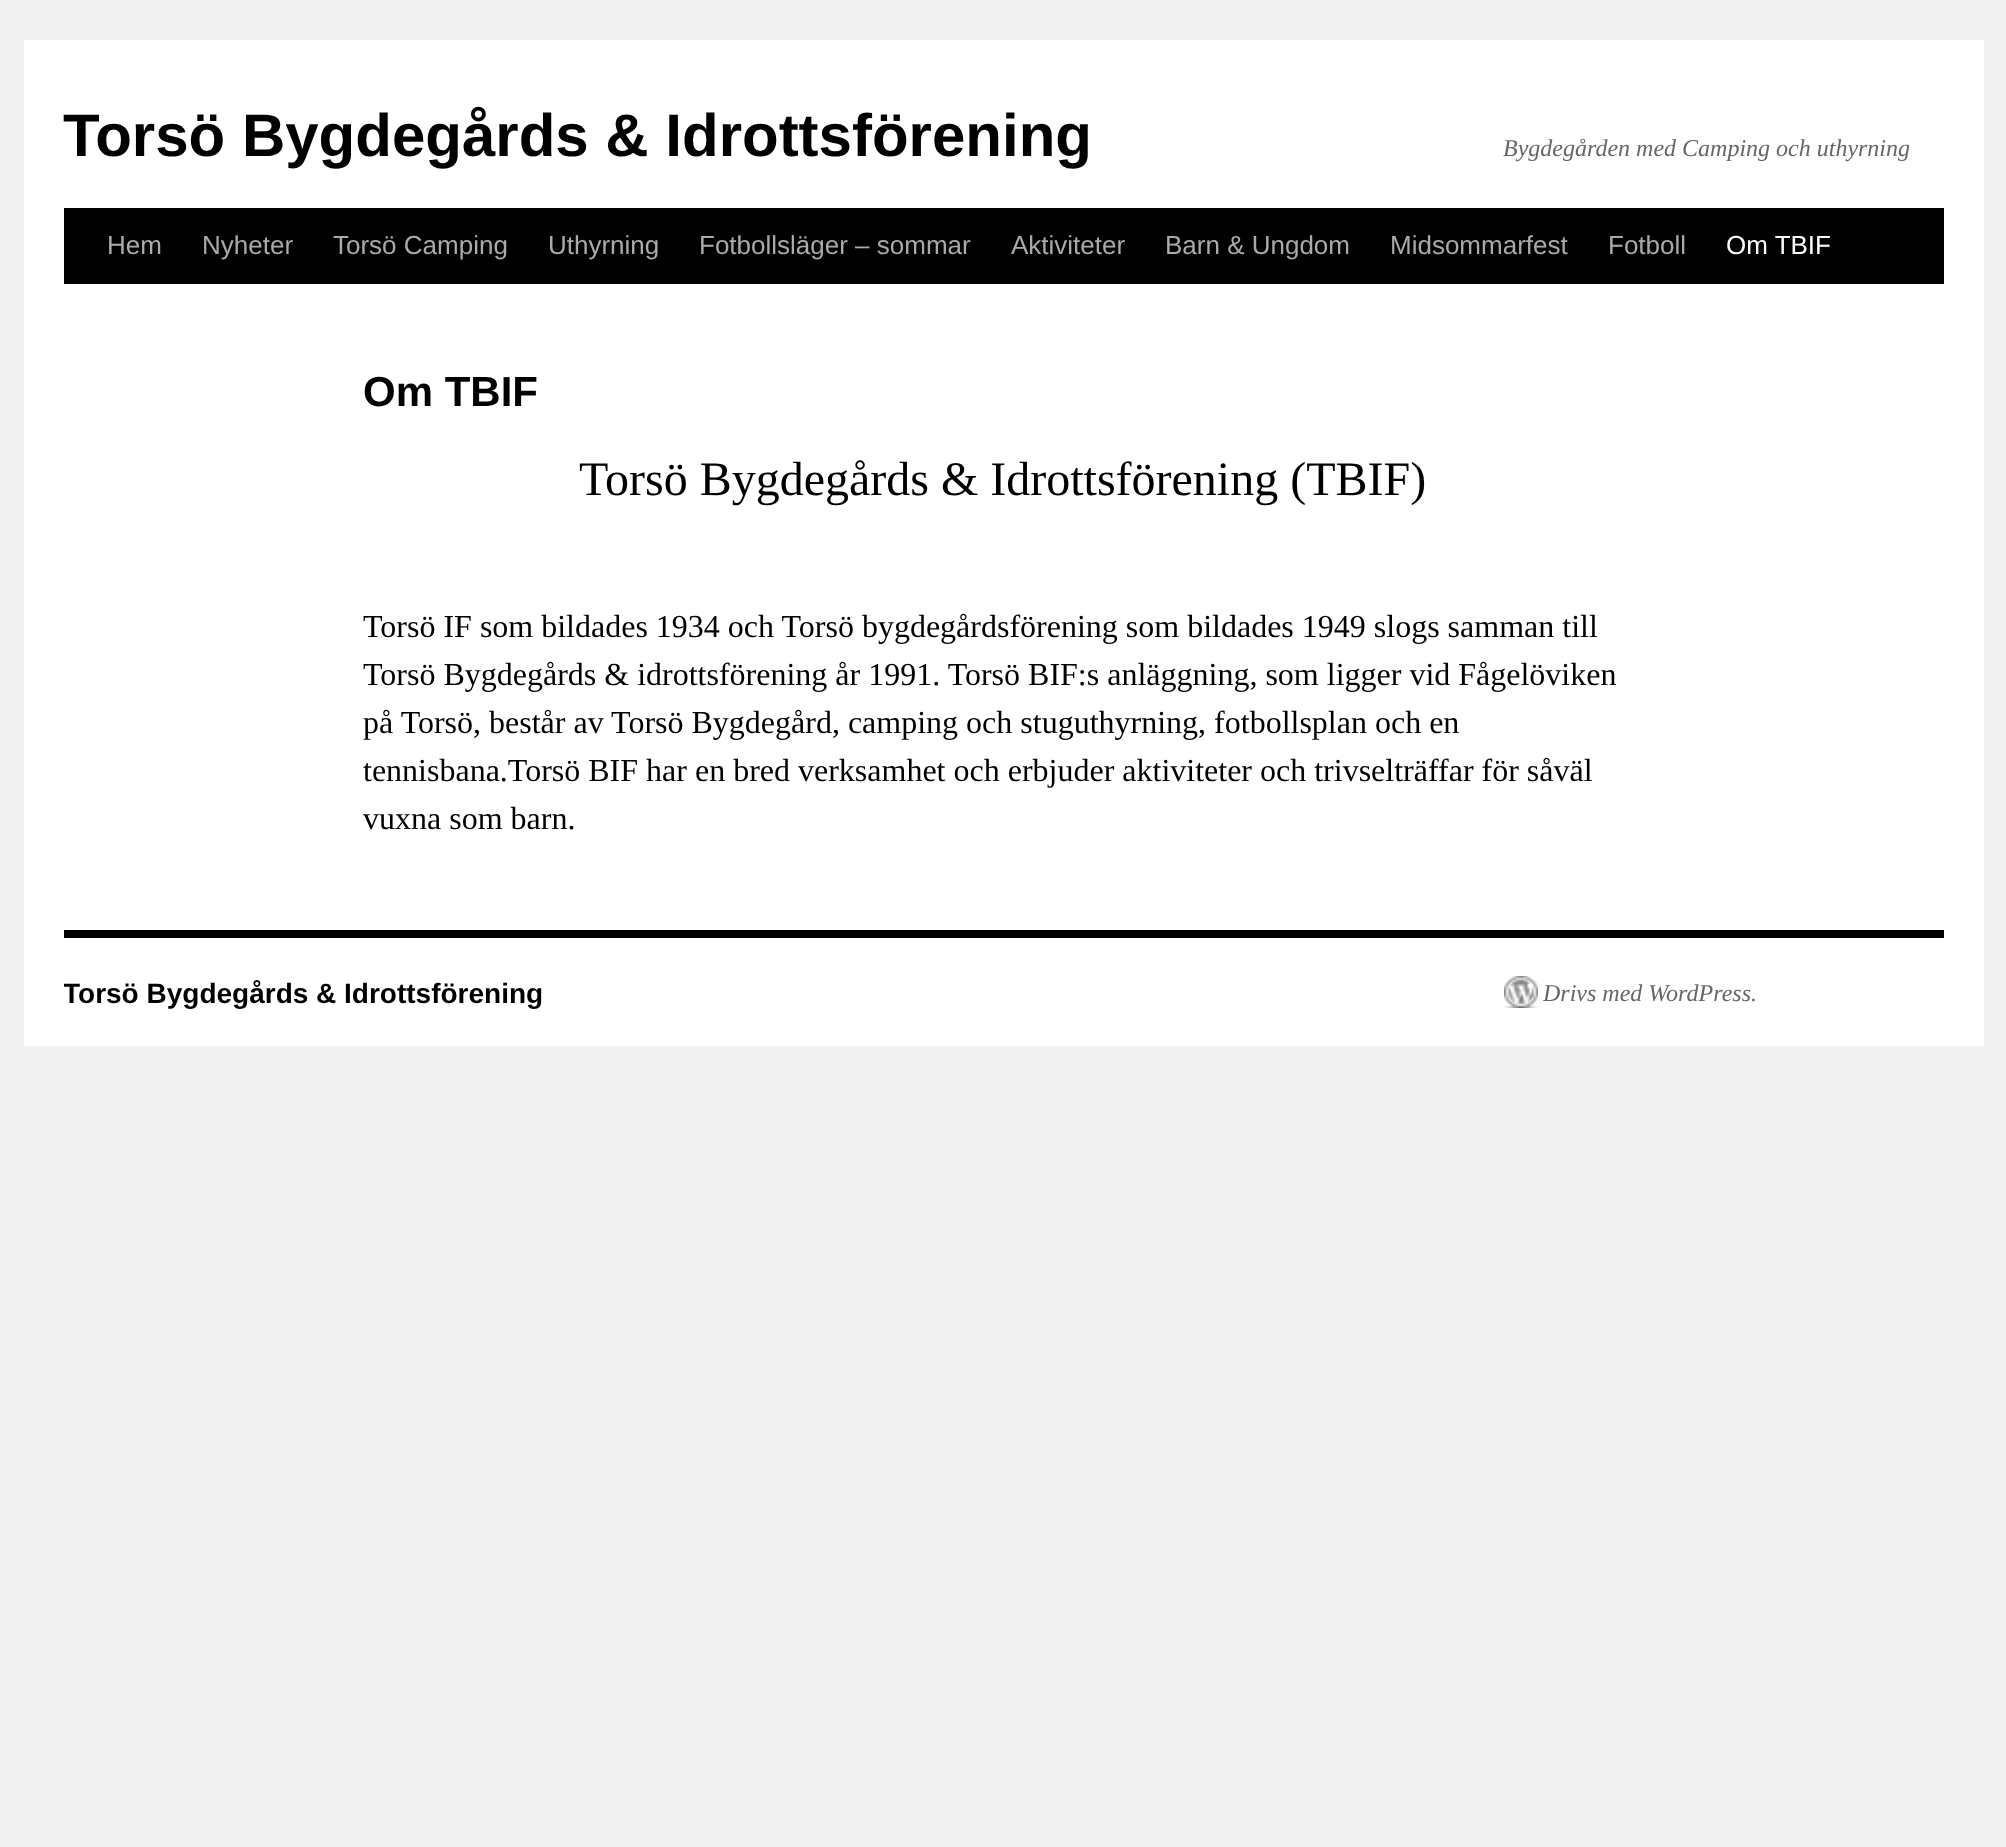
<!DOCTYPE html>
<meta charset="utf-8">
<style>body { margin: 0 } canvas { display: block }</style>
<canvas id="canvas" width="2006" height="1847"></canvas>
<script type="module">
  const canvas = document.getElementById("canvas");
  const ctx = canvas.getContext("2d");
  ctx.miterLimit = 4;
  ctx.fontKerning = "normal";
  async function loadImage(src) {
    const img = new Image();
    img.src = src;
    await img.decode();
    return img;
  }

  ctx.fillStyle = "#f1f1f1";
  ctx.fillRect(0, 0, 2006, 1847);
  ctx.fillStyle = "#ffffff";
  ctx.fillRect(24, 40, 1960, 1006);
  ctx.font = "bold 60px Liberation Sans";
  ctx.fillStyle = "#000000";
  ctx.fillText("Torsö Bygdegårds & Idrottsförening", 63, 156);
  ctx.font = "italic 24px Liberation Serif";
  ctx.fillStyle = "#666666";
  ctx.fillText("Bygdegården med Camping och uthyrning", 1503, 156);
  ctx.fillStyle = "#000000";
  ctx.fillRect(64, 208, 1880, 76);
  ctx.font = "26px Liberation Sans";
  ctx.fillStyle = "#aaaaaa";
  ctx.fillText("Hem", 107, 254);
  ctx.fillText("Nyheter", 202, 254);
  ctx.fillText("Torsö Camping", 333, 254);
  ctx.fillText("Uthyrning", 548, 254);
  ctx.fillText("Fotbollsläger – sommar", 699, 254);
  ctx.fillText("Aktiviteter", 1011, 254);
  ctx.fillText("Barn & Ungdom", 1165, 254);
  ctx.fillText("Midsommarfest", 1390, 254);
  ctx.fillText("Fotboll", 1608, 254);
  ctx.fillStyle = "#ffffff";
  ctx.fillText("Om TBIF", 1726, 254);
  ctx.font = "bold 42px Liberation Sans";
  ctx.fillStyle = "#000000";
  ctx.fillText("Om TBIF", 363, 406);
  ctx.font = "48px Liberation Serif";
  ctx.fillText("Torsö Bygdegårds & Idrottsförening (TBIF)", 579, 495);
  ctx.font = "32px Liberation Serif";
  ctx.fillText("Torsö IF som bildades 1934 och Torsö bygdegårdsförening som bildades 1949 slogs samman till", 363, 637);
  ctx.fillText("Torsö Bygdegårds & idrottsförening år 1991. Torsö BIF:s anläggning, som ligger vid Fågelöviken", 363, 685);
  ctx.fillText("på Torsö, består av Torsö Bygdegård, camping och stuguthyrning, fotbollsplan och en", 363, 733);
  ctx.fillText("tennisbana.Torsö BIF har en bred verksamhet och erbjuder aktiviteter och trivselträffar för såväl", 363, 781);
  ctx.fillText("vuxna som barn.", 363, 829);
  ctx.fillRect(64, 930, 1880, 8);
  ctx.save();
  ctx.beginPath();
  ctx.rect(64, 938, 1880, 108);
  ctx.clip();
  ctx.font = "bold 28px Liberation Sans";
  ctx.fillText("Torsö Bygdegårds & Idrottsförening", 63, 1003);
  ctx.restore();
  ctx.drawImage(await loadImage("img1.png"), 1504, 976, 34, 32);
  ctx.font = "italic 24px Liberation Serif";
  ctx.fillStyle = "#666666";
  ctx.fillText("Drivs med WordPress.", 1543, 1001);
</script>
